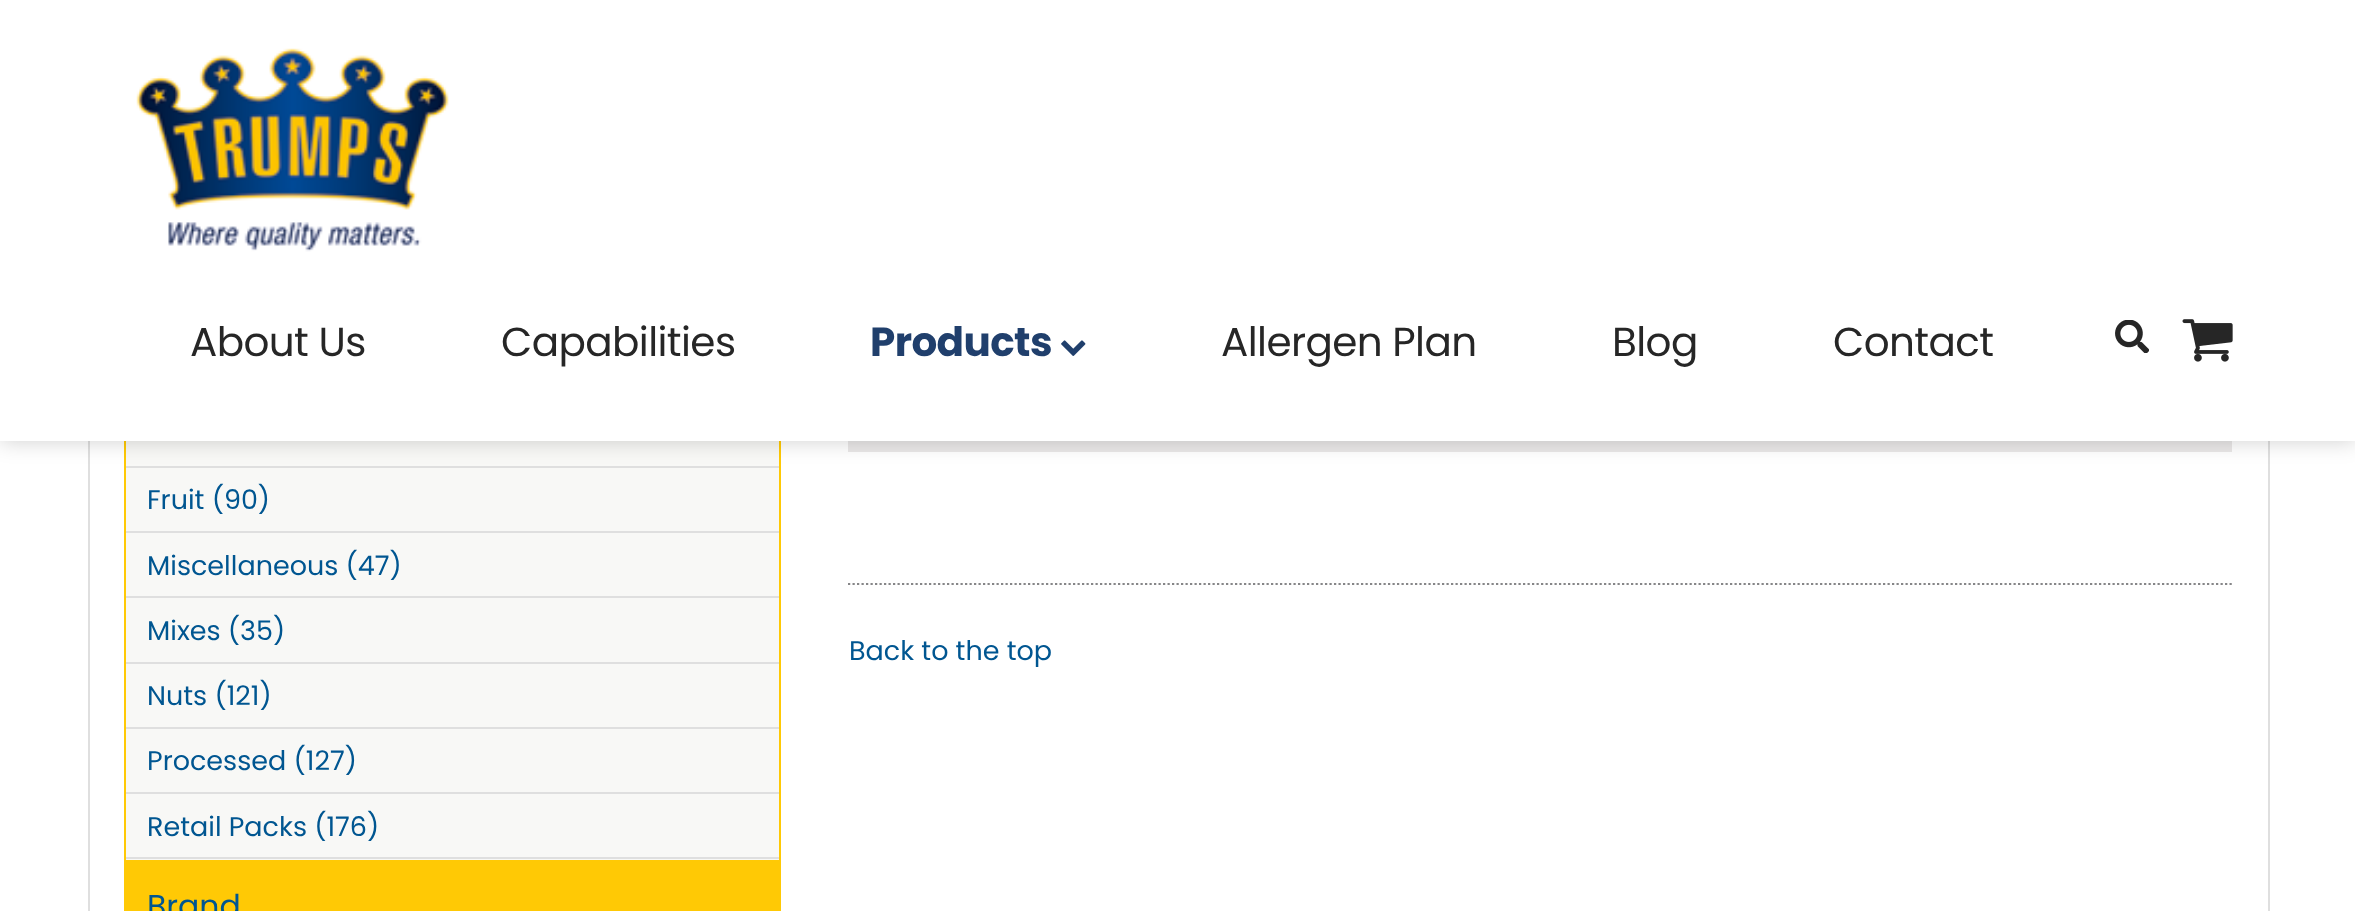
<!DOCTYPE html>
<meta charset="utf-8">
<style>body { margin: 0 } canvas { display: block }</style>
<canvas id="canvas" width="2355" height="911"></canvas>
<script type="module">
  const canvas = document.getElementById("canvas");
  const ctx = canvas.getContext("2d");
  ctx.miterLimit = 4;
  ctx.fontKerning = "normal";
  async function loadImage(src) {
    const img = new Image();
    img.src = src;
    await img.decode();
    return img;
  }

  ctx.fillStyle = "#ffffff";
  ctx.fillRect(0, 0, 2355, 911);
  ctx.fillStyle = "#dfdfdf";
  ctx.fillRect(2268, 441, 2, 470);
  ctx.fillRect(88, 441, 2, 470);
  ctx.strokeStyle = "#ffc905";
  ctx.lineWidth = 2;
  ctx.strokeRect(125, 177, 655, 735);
  ctx.fillStyle = "#f8f8f6";
  ctx.fillRect(126, 441, 653, 25);
  ctx.fillStyle = "#dfdfdf";
  ctx.fillRect(126, 466, 653, 2);
  ctx.fillStyle = "#f8f8f6";
  ctx.fillRect(126, 468, 653, 63);
  ctx.fillStyle = "#eae8e8";
  ctx.fillRect(848, 441, 1384, 11);
  ctx.fillStyle = "rgba(0, 0, 0, 0.19)";
  ctx.filter = "blur(11px)";
  ctx.beginPath();
  ctx.rect(0, 0, 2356, 441);
  ctx.fill();
  ctx.filter = "none";
  ctx.fillStyle = "#ffffff";
  ctx.fillRect(0, 0, 2355, 441);
  ctx.drawImage(await loadImage("img1.png"), 136, 48, 313, 204);
  ctx.letterSpacing = "-0.6px";
  ctx.font = "40.5px Poppins";
  ctx.fillStyle = "#262626";
  ctx.fillText("About Us", 190, 356);
  ctx.fillText("Capabilities", 501, 356);
  ctx.font = "bold 40.5px Poppins";
  ctx.fillStyle = "#203f6c";
  ctx.fillText("Products", 870, 356);
  ctx.drawImage(await loadImage("img2.png"), 1061, 340, 25, 16);
  ctx.font = "40.5px Poppins";
  ctx.fillStyle = "#262626";
  ctx.fillText("Allergen Plan", 1221, 356);
  ctx.fillText("Blog", 1612, 356);
  ctx.fillText("Contact", 1833, 356);
  ctx.drawImage(await loadImage("img3.png"), 2115, 320, 34, 33);
  ctx.drawImage(await loadImage("img4.png"), 2182, 319, 51, 43);
  ctx.fillStyle = "#dfdfdf";
  ctx.fillRect(126, 531, 653, 2);
  ctx.letterSpacing = "0px";
  ctx.font = "27px Poppins";
  ctx.fillStyle = "#005691";
  ctx.fillText("Fruit (90)", 147, 509);
  ctx.fillStyle = "#f8f8f6";
  ctx.fillRect(126, 533, 653, 129);
  ctx.fillStyle = "#dfdfdf";
  ctx.fillRect(126, 596, 653, 2);
  ctx.fillStyle = "#005691";
  ctx.fillText("Miscellaneous (47)", 147, 575);
  ctx.fillStyle = "#dfdfdf";
  ctx.fillRect(126, 662, 653, 2);
  ctx.fillStyle = "#005691";
  ctx.fillText("Mixes (35)", 147, 640);
  ctx.fillStyle = "#f8f8f6";
  ctx.fillRect(126, 664, 653, 63);
  ctx.fillStyle = "#dfdfdf";
  ctx.fillRect(126, 727, 653, 2);
  ctx.fillStyle = "#005691";
  ctx.fillText("Nuts (121)", 147, 705);
  ctx.fillStyle = "#f8f8f6";
  ctx.fillRect(126, 729, 653, 63);
  ctx.fillStyle = "#dfdfdf";
  ctx.fillRect(126, 792, 653, 2);
  ctx.fillStyle = "#005691";
  ctx.fillText("Processed (127)", 147, 770);
  ctx.fillStyle = "#f8f8f6";
  ctx.fillRect(126, 794, 653, 66);
  ctx.fillStyle = "#dfdfdf";
  ctx.fillRect(126, 857, 653, 2);
  ctx.fillStyle = "#005691";
  ctx.fillText("Retail Packs (176)", 147, 836);
  ctx.fillStyle = "#ffc905";
  ctx.fillRect(126, 860, 653, 51);
  ctx.font = "31.5px Poppins";
  ctx.fillStyle = "#005691";
  ctx.fillText("Brand", 147, 917);
  ctx.beginPath();
  ctx.moveTo(848, 584);
  ctx.lineTo(2232, 584);
  ctx.strokeStyle = "#868688";
  ctx.lineWidth = 2.2;
  ctx.setLineDash([2.25, 2.25]);
  ctx.stroke();
  ctx.font = "27px Poppins";
  ctx.fillText("Back to the top", 849, 660);
</script>
